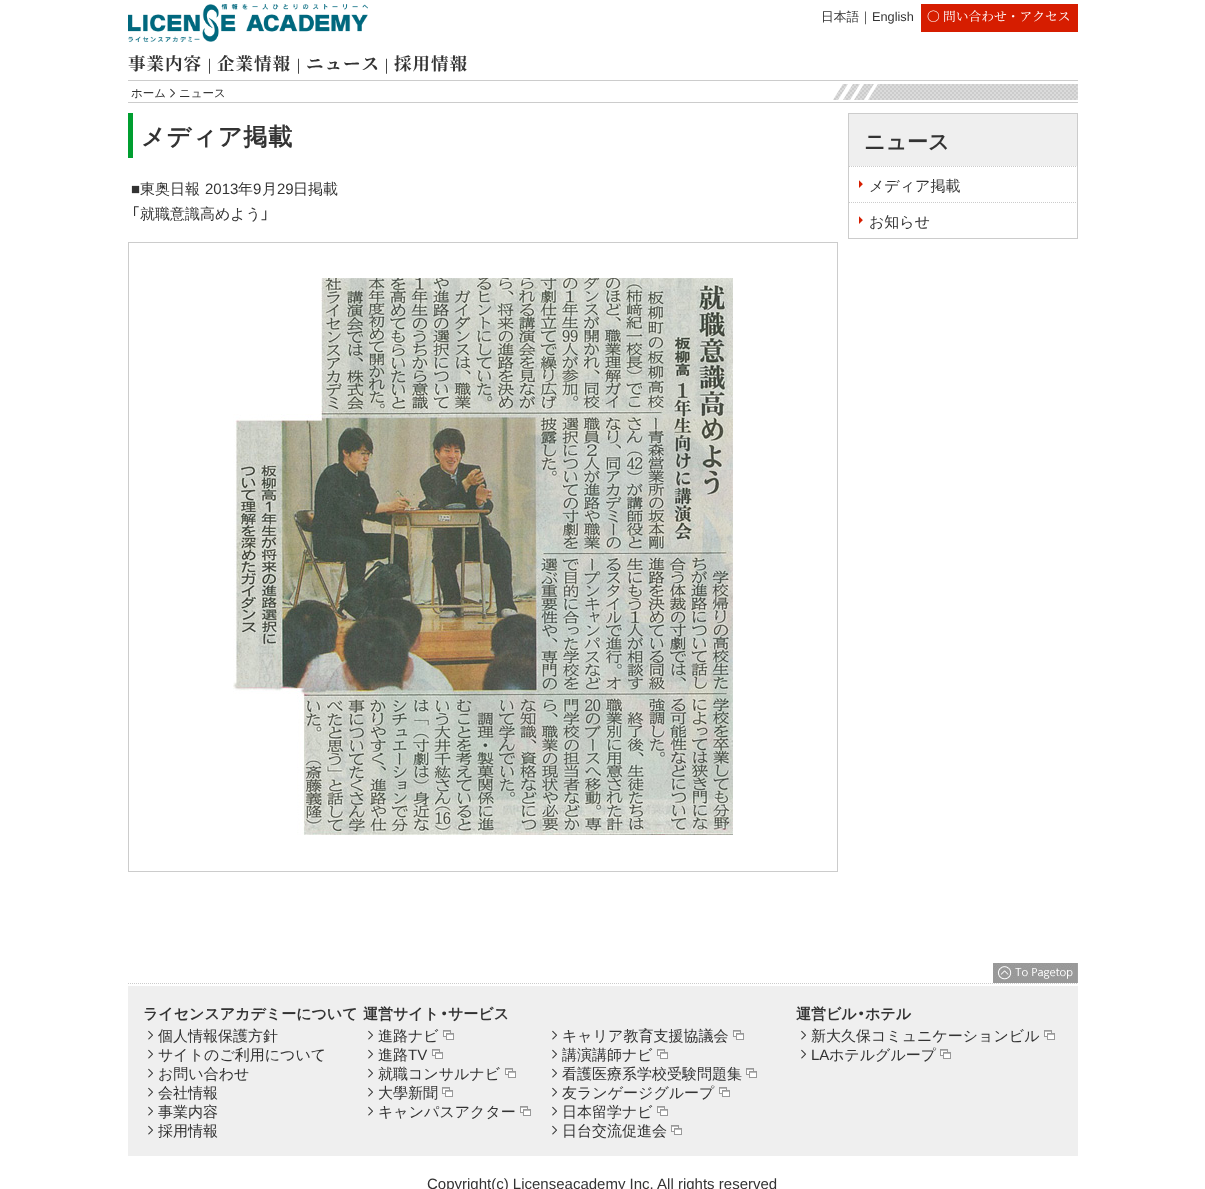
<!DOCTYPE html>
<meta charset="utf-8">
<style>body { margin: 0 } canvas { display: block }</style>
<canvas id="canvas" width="1205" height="1189"></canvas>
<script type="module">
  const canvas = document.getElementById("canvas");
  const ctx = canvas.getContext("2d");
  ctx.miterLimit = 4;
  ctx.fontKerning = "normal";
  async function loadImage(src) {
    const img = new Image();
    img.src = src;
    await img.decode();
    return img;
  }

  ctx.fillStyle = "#ffffff";
  ctx.fillRect(0, 0, 1205, 1189);
  ctx.drawImage(await loadImage("img1.png"), 128, 4, 240, 38);
  ctx.font = "500 12.75px WenQuanYi Zen Hei";
  ctx.fillStyle = "#333333";
  ctx.fillText("日本語｜", 821, 21);
  ctx.font = "12.75px Liberation Sans";
  ctx.fillText("English", 872, 21);
  ctx.fillStyle = "#d61d00";
  ctx.fillRect(921, 4, 157, 28);
  ctx.font = "12.75px Noto Serif JP";
  ctx.fillStyle = "#ffffff";
  ctx.fillText("〇 問い合わせ・アクセス", 927, 21);
  ctx.letterSpacing = "1px";
  ctx.font = "bold 17.5px Noto Serif JP";
  ctx.fillStyle = "#333333";
  ctx.fillText("事業内容", 128, 70);
  ctx.letterSpacing = "0px";
  ctx.font = "500 15px WenQuanYi Zen Hei";
  ctx.fillText("｜", 202, 70);
  ctx.letterSpacing = "1px";
  ctx.font = "bold 17.5px Noto Serif JP";
  ctx.fillText("企業情報", 217, 70);
  ctx.letterSpacing = "0px";
  ctx.font = "500 15px WenQuanYi Zen Hei";
  ctx.fillText("｜", 291, 70);
  ctx.letterSpacing = "1px";
  ctx.font = "bold 17.5px Noto Serif JP";
  ctx.fillText("ニュース", 306, 70);
  ctx.letterSpacing = "0px";
  ctx.font = "500 15px WenQuanYi Zen Hei";
  ctx.fillText("｜", 379, 70);
  ctx.letterSpacing = "1px";
  ctx.font = "bold 17.5px Noto Serif JP";
  ctx.fillText("採用情報", 394, 70);
  ctx.drawImage(await loadImage("img2.png"), 833, 84, 245, 16);
  ctx.fillStyle = "#cccccc";
  ctx.fillRect(128, 80, 950, 1);
  ctx.fillRect(128, 102, 950, 1);
  ctx.letterSpacing = "0px";
  ctx.font = "500 11.5px WenQuanYi Zen Hei";
  ctx.fillStyle = "#333333";
  ctx.fillText("ホーム", 131, 97);
  ctx.drawImage(await loadImage("img3.png"), 170, 88, 5, 10);
  ctx.fillText("ニュース", 179, 97);
  ctx.fillStyle = "#009e30";
  ctx.fillRect(128, 113, 5, 45);
  ctx.letterSpacing = "1px";
  ctx.font = "bold 24px WenQuanYi Zen Hei";
  ctx.fillStyle = "#333333";
  ctx.fillText("メディア掲載", 141, 145);
  ctx.letterSpacing = "0px";
  ctx.font = "15px Liberation Sans";
  ctx.fillText("■", 131, 194);
  ctx.font = "500 15px WenQuanYi Zen Hei";
  ctx.fillText("東奥日報", 140, 194);
  ctx.font = "15px Liberation Sans";
  ctx.fillText("2013", 205, 194);
  ctx.font = "500 15px WenQuanYi Zen Hei";
  ctx.fillText("年", 238, 194);
  ctx.font = "15px Liberation Sans";
  ctx.fillText("9", 253, 194);
  ctx.font = "500 15px WenQuanYi Zen Hei";
  ctx.fillText("月", 262, 194);
  ctx.font = "15px Liberation Sans";
  ctx.fillText("29", 277, 194);
  ctx.font = "500 15px WenQuanYi Zen Hei";
  ctx.fillText("日掲載", 293, 194);
  ctx.font = "15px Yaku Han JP";
  ctx.fillText("「", 131, 219);
  ctx.font = "500 15px WenQuanYi Zen Hei";
  ctx.fillText("就職意識高めよう", 140, 219);
  ctx.font = "15px Yaku Han JP";
  ctx.fillText("」", 261, 219);
  ctx.strokeStyle = "#cccccc";
  ctx.strokeRect(128.5, 242.5, 709, 629);
  ctx.drawImage(await loadImage("img4.png"), 233, 278, 500, 557);
  ctx.strokeRect(848.5, 113.5, 229, 125);
  ctx.fillStyle = "#efefef";
  ctx.fillRect(849, 114, 228, 52);
  ctx.font = "bold 21px WenQuanYi Zen Hei";
  ctx.fillStyle = "#333333";
  ctx.fillText("ニュース", 864, 149);
  ctx.drawImage(await loadImage("img5.png"), 859, 180, 4, 8);
  ctx.beginPath();
  ctx.moveTo(849, 166.5);
  ctx.lineTo(1077, 166.5);
  ctx.setLineDash([1, 1]);
  ctx.stroke();
  ctx.font = "500 15px WenQuanYi Zen Hei";
  ctx.fillText("メディア掲載", 869, 191);
  ctx.drawImage(await loadImage("img5.png"), 859, 216, 4, 8);
  ctx.beginPath();
  ctx.moveTo(849, 202.5);
  ctx.lineTo(1077, 202.5);
  ctx.stroke();
  ctx.fillText("お知らせ", 869, 227);
  ctx.beginPath();
  ctx.moveTo(128, 983.5);
  ctx.lineTo(1078, 983.5);
  ctx.stroke();
  ctx.drawImage(await loadImage("img6.png"), 993, 963, 85, 20);
  ctx.fillStyle = "#efefef";
  ctx.fillRect(128, 986, 950, 170);
  ctx.font = "bold 15px WenQuanYi Zen Hei";
  ctx.fillStyle = "#333333";
  ctx.fillText("ライセンスアカデミーについて", 143, 1019);
  ctx.drawImage(await loadImage("img7.png"), 148, 1030, 5, 10);
  ctx.font = "500 15px WenQuanYi Zen Hei";
  ctx.fillText("個人情報保護方針", 158, 1041);
  ctx.drawImage(await loadImage("img7.png"), 148, 1049, 5, 10);
  ctx.fillText("サイトのご利用について", 158, 1060);
  ctx.drawImage(await loadImage("img7.png"), 148, 1068, 5, 10);
  ctx.fillText("お問い合わせ", 158, 1079);
  ctx.drawImage(await loadImage("img7.png"), 148, 1087, 5, 10);
  ctx.fillText("会社情報", 158, 1098);
  ctx.drawImage(await loadImage("img7.png"), 148, 1106, 5, 10);
  ctx.fillText("事業内容", 158, 1117);
  ctx.drawImage(await loadImage("img7.png"), 148, 1125, 5, 10);
  ctx.fillText("採用情報", 158, 1136);
  ctx.font = "bold 15px WenQuanYi Zen Hei";
  ctx.fillText("運営サイト", 363, 1019);
  ctx.font = "bold 15px Yaku Han JP";
  ctx.fillText("・", 440, 1019);
  ctx.font = "bold 15px WenQuanYi Zen Hei";
  ctx.fillText("サービス", 448, 1019);
  ctx.drawImage(await loadImage("img8.png"), 368, 1030, 86, 10);
  ctx.font = "500 15px WenQuanYi Zen Hei";
  ctx.fillText("進路ナビ", 378, 1041);
  ctx.drawImage(await loadImage("img9.png"), 368, 1049, 75, 10);
  ctx.fillText("進路", 378, 1060);
  ctx.font = "15px Liberation Sans";
  ctx.fillText("TV", 408, 1060);
  ctx.drawImage(await loadImage("img10.png"), 368, 1068, 148, 10);
  ctx.font = "500 15px WenQuanYi Zen Hei";
  ctx.fillText("就職コンサルナビ", 378, 1079);
  ctx.drawImage(await loadImage("img11.png"), 368, 1087, 85, 10);
  ctx.fillText("大學新聞", 378, 1098);
  ctx.drawImage(await loadImage("img12.png"), 368, 1106, 163, 10);
  ctx.fillText("キャンパスアクター", 378, 1117);
  ctx.drawImage(await loadImage("img13.png"), 552, 1030, 192, 10);
  ctx.fillText("キャリア教育支援協議会", 562, 1041);
  ctx.drawImage(await loadImage("img14.png"), 552, 1049, 116, 10);
  ctx.fillText("講演講師ナビ", 562, 1060);
  ctx.drawImage(await loadImage("img15.png"), 552, 1068, 205, 10);
  ctx.fillText("看護医療系学校受験問題集", 562, 1079);
  ctx.drawImage(await loadImage("img16.png"), 552, 1087, 178, 10);
  ctx.fillText("友ランゲージグループ", 562, 1098);
  ctx.drawImage(await loadImage("img14.png"), 552, 1106, 116, 10);
  ctx.fillText("日本留学ナビ", 562, 1117);
  ctx.drawImage(await loadImage("img17.png"), 552, 1125, 130, 10);
  ctx.fillText("日台交流促進会", 562, 1136);
  ctx.font = "bold 15px WenQuanYi Zen Hei";
  ctx.fillText("運営ビル", 796, 1019);
  ctx.font = "bold 15px Yaku Han JP";
  ctx.fillText("・", 857, 1019);
  ctx.font = "bold 15px WenQuanYi Zen Hei";
  ctx.fillText("ホテル", 865, 1019);
  ctx.drawImage(await loadImage("img18.png"), 801, 1030, 254, 10);
  ctx.font = "500 15px WenQuanYi Zen Hei";
  ctx.fillText("新大久保コミュニケーションビル", 811, 1041);
  ctx.drawImage(await loadImage("img19.png"), 801, 1049, 150, 10);
  ctx.font = "15px Liberation Sans";
  ctx.fillText("LA", 811, 1060);
  ctx.font = "500 15px WenQuanYi Zen Hei";
  ctx.fillText("ホテルグループ", 829, 1060);
  ctx.font = "15px Liberation Sans";
  ctx.fillText("Copyright(c) Licenseacademy Inc. All rights reserved", 427, 1189);
</script>
